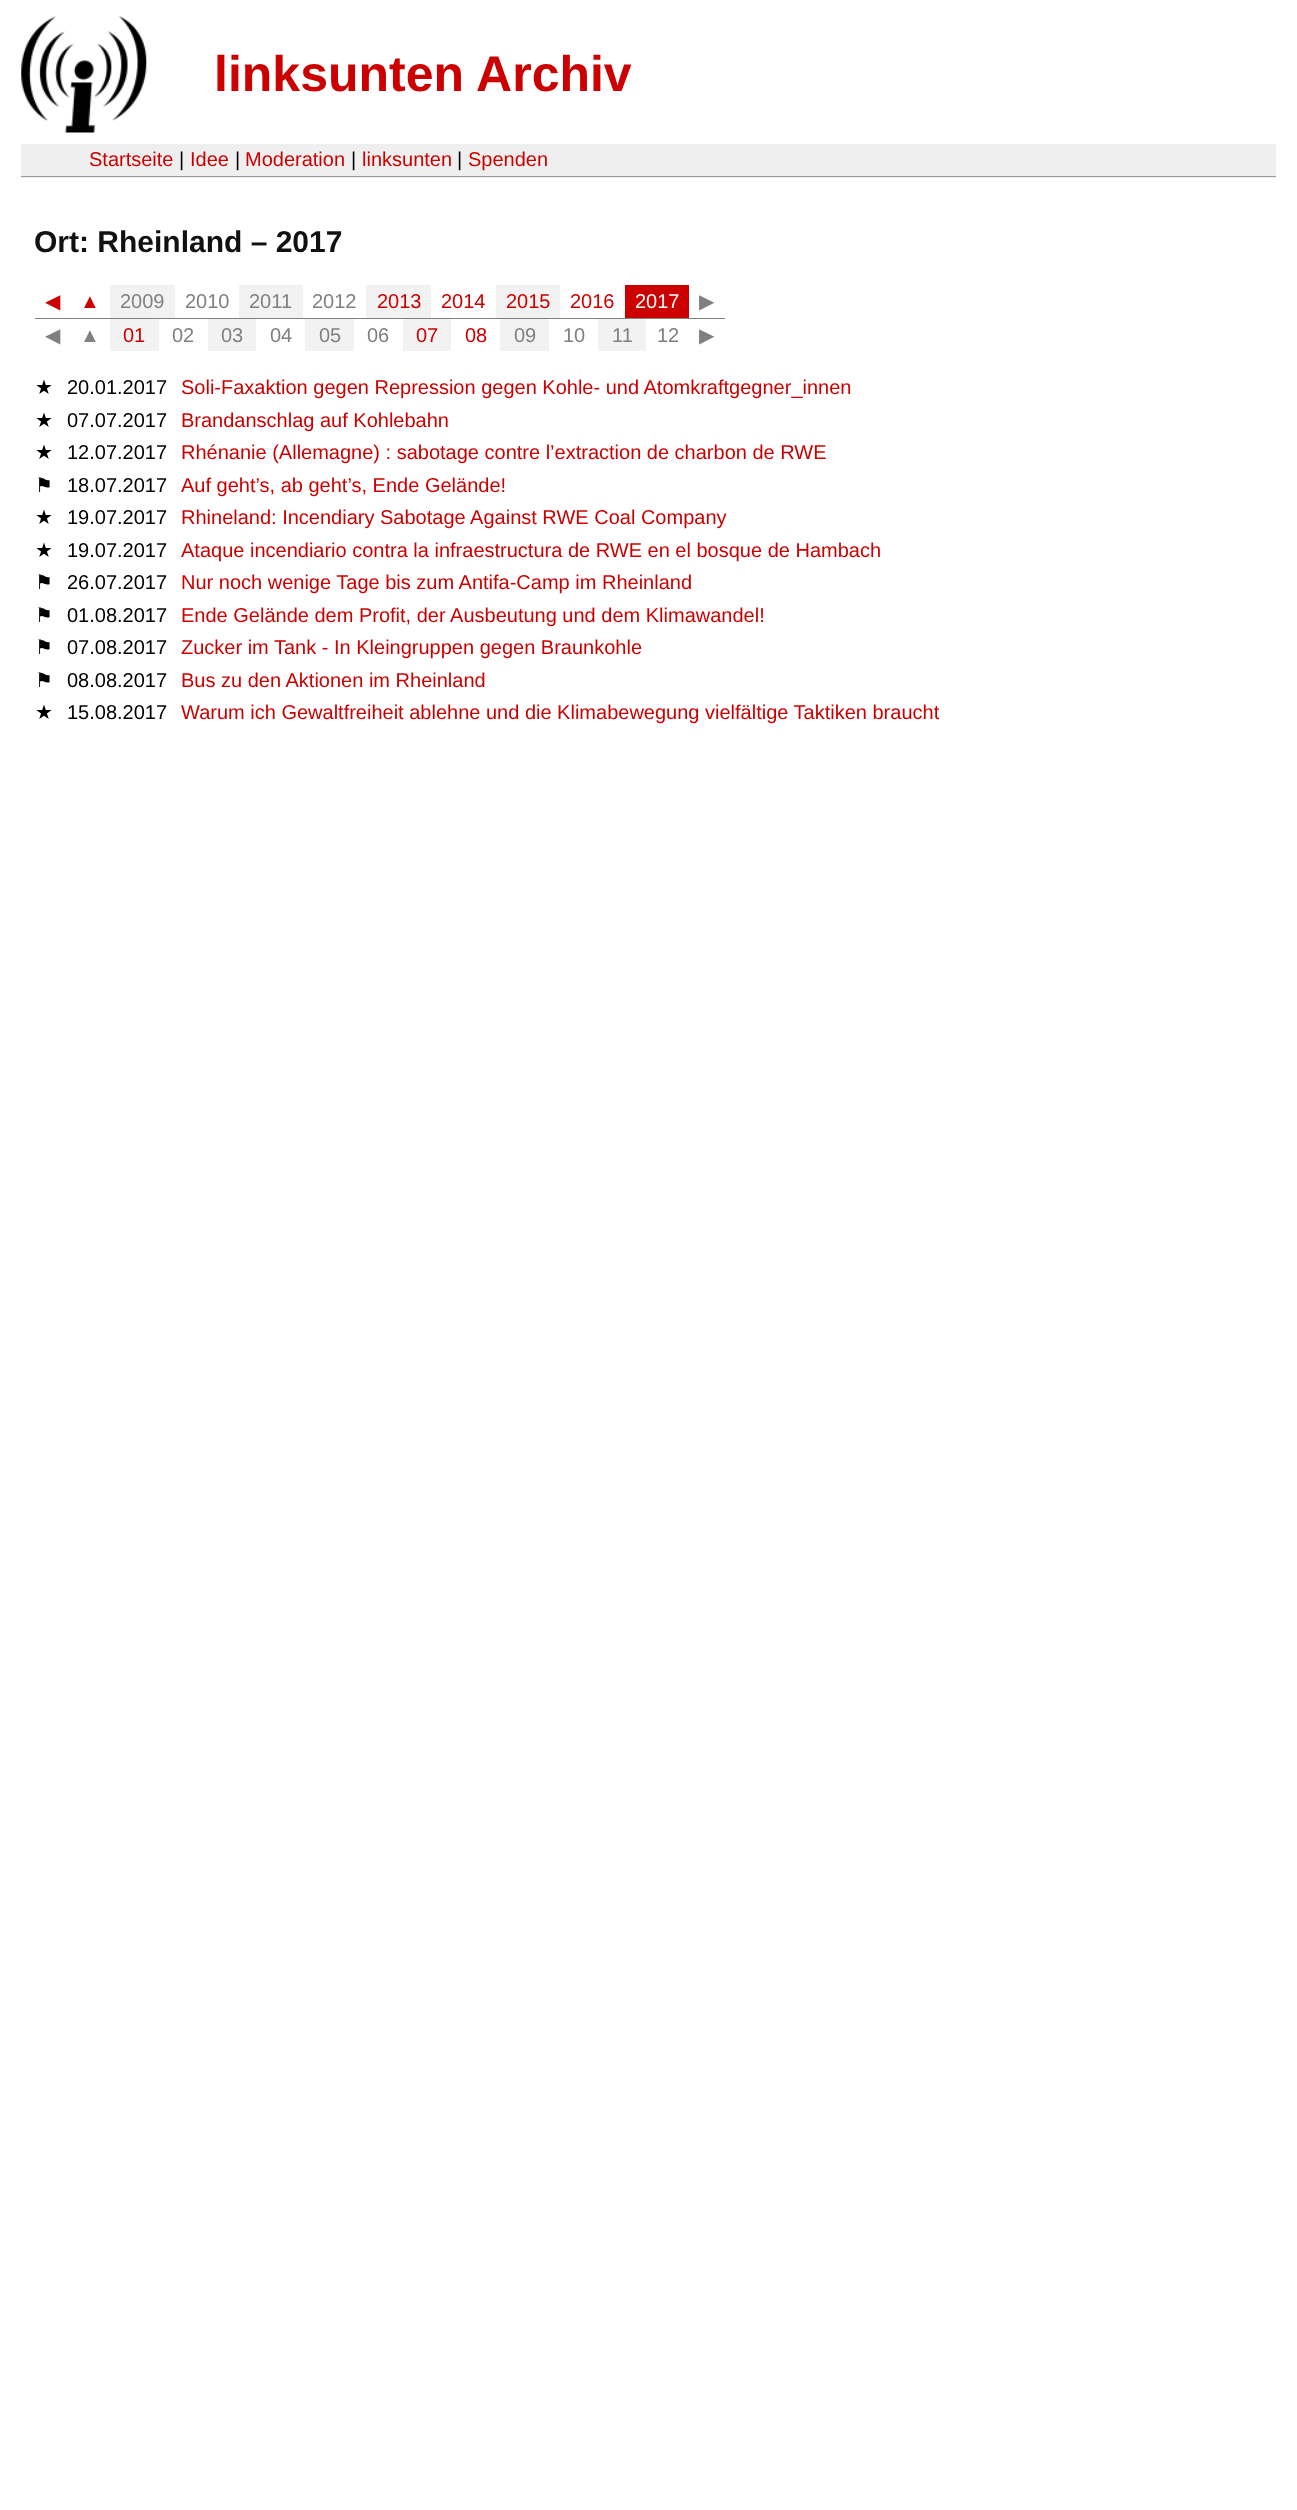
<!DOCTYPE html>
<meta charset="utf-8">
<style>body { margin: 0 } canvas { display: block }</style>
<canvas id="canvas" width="1297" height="2510"></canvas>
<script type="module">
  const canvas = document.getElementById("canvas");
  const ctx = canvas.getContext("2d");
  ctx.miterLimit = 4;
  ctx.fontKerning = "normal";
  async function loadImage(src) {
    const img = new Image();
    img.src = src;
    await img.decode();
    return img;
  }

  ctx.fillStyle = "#ffffff";
  ctx.fillRect(0, 0, 1297, 2510);
  ctx.drawImage(await loadImage("img1.png"), 21, 16, 126, 117);
  ctx.font = "bold 50px Liberation Sans";
  ctx.fillStyle = "#cc0000";
  ctx.fillText("linksunten Archiv", 214, 91);
  ctx.fillStyle = "#efefef";
  ctx.fillRect(21, 144, 1255, 34);
  ctx.fillStyle = "#999999";
  ctx.fillRect(21, 176, 1255, 1);
  ctx.font = "20px Liberation Sans";
  ctx.fillStyle = "#cc0000";
  ctx.fillText("Startseite", 89, 166);
  ctx.fillStyle = "#000000";
  ctx.fillText("|", 179, 166);
  ctx.fillStyle = "#cc0000";
  ctx.fillText("Idee", 190, 166);
  ctx.fillStyle = "#000000";
  ctx.fillText("|", 235, 166);
  ctx.fillStyle = "#cc0000";
  ctx.fillText("Moderation", 245, 166);
  ctx.fillStyle = "#000000";
  ctx.fillText("|", 351, 166);
  ctx.fillStyle = "#cc0000";
  ctx.fillText("linksunten", 362, 166);
  ctx.fillStyle = "#000000";
  ctx.fillText("|", 457, 166);
  ctx.fillStyle = "#cc0000";
  ctx.fillText("Spenden", 468, 166);
  ctx.font = "bold 30px Liberation Sans";
  ctx.fillStyle = "#111111";
  ctx.fillText("Ort: Rheinland – 2017", 34, 252);
  ctx.fillStyle = "#808080";
  ctx.fillRect(35, 318, 690, 1);
  ctx.font = "20px DejaVu Sans";
  ctx.fillStyle = "#cc0000";
  ctx.fillText("◀", 45, 308);
  ctx.font = "20px Liberation Sans";
  ctx.fillText("▲", 80, 308);
  ctx.fillStyle = "#f2f2f2";
  ctx.fillRect(110, 285, 65, 33);
  ctx.fillStyle = "#808080";
  ctx.fillText("2009", 120, 308);
  ctx.fillText("2010", 185, 308);
  ctx.fillStyle = "#f2f2f2";
  ctx.fillRect(239, 285, 64, 33);
  ctx.fillStyle = "#808080";
  ctx.fillText("2011", 249, 308);
  ctx.fillText("2012", 312, 308);
  ctx.fillStyle = "#f2f2f2";
  ctx.fillRect(366, 285, 65, 33);
  ctx.fillStyle = "#cc0000";
  ctx.fillText("2013", 377, 308);
  ctx.fillText("2014", 441, 308);
  ctx.fillStyle = "#f2f2f2";
  ctx.fillRect(496, 285, 64, 33);
  ctx.fillStyle = "#cc0000";
  ctx.fillText("2015", 506, 308);
  ctx.fillText("2016", 570, 308);
  ctx.fillRect(625, 285, 64, 33);
  ctx.fillStyle = "#ffffff";
  ctx.fillText("2017", 635, 308);
  ctx.font = "20px DejaVu Sans";
  ctx.fillStyle = "#808080";
  ctx.fillText("▶", 699, 308);
  ctx.fillText("◀", 45, 342);
  ctx.font = "20px Liberation Sans";
  ctx.fillText("▲", 80, 342);
  ctx.fillStyle = "#f2f2f2";
  ctx.fillRect(110, 319, 49, 32);
  ctx.fillStyle = "#cc0000";
  ctx.fillText("01", 123, 342);
  ctx.fillStyle = "#808080";
  ctx.fillText("02", 172, 342);
  ctx.fillStyle = "#f2f2f2";
  ctx.fillRect(208, 319, 48, 32);
  ctx.fillStyle = "#808080";
  ctx.fillText("03", 221, 342);
  ctx.fillText("04", 270, 342);
  ctx.fillStyle = "#f2f2f2";
  ctx.fillRect(305, 319, 49, 32);
  ctx.fillStyle = "#808080";
  ctx.fillText("05", 319, 342);
  ctx.fillText("06", 367, 342);
  ctx.fillStyle = "#f2f2f2";
  ctx.fillRect(403, 319, 48, 32);
  ctx.fillStyle = "#cc0000";
  ctx.fillText("07", 416, 342);
  ctx.fillText("08", 465, 342);
  ctx.fillStyle = "#f2f2f2";
  ctx.fillRect(500, 319, 49, 32);
  ctx.fillStyle = "#808080";
  ctx.fillText("09", 514, 342);
  ctx.fillText("10", 563, 342);
  ctx.fillStyle = "#f2f2f2";
  ctx.fillRect(598, 319, 48, 32);
  ctx.fillStyle = "#808080";
  ctx.fillText("11", 612, 342);
  ctx.fillText("12", 657, 342);
  ctx.font = "20px DejaVu Sans";
  ctx.fillText("▶", 699, 342);
  ctx.fillStyle = "#000000";
  ctx.fillText("★", 35, 394);
  ctx.font = "20px Liberation Sans";
  ctx.fillText("20.01.2017", 67, 394);
  ctx.fillStyle = "#cc0000";
  ctx.fillText("Soli-Faxaktion gegen Repression gegen Kohle- und Atomkraftgegner_innen", 181, 394);
  ctx.font = "20px DejaVu Sans";
  ctx.fillStyle = "#000000";
  ctx.fillText("★", 35, 427);
  ctx.font = "20px Liberation Sans";
  ctx.fillText("07.07.2017", 67, 427);
  ctx.fillStyle = "#cc0000";
  ctx.fillText("Brandanschlag auf Kohlebahn", 181, 427);
  ctx.font = "20px DejaVu Sans";
  ctx.fillStyle = "#000000";
  ctx.fillText("★", 35, 459);
  ctx.font = "20px Liberation Sans";
  ctx.fillText("12.07.2017", 67, 459);
  ctx.fillStyle = "#cc0000";
  ctx.fillText("Rhénanie (Allemagne) : sabotage contre l’extraction de charbon de RWE", 181, 459);
  ctx.font = "20px DejaVu Sans";
  ctx.fillStyle = "#000000";
  ctx.fillText("⚑", 35, 492);
  ctx.font = "20px Liberation Sans";
  ctx.fillText("18.07.2017", 67, 492);
  ctx.fillStyle = "#cc0000";
  ctx.fillText("Auf geht’s, ab geht’s, Ende Gelände!", 181, 492);
  ctx.font = "20px DejaVu Sans";
  ctx.fillStyle = "#000000";
  ctx.fillText("★", 35, 524);
  ctx.font = "20px Liberation Sans";
  ctx.fillText("19.07.2017", 67, 524);
  ctx.fillStyle = "#cc0000";
  ctx.fillText("Rhineland: Incendiary Sabotage Against RWE Coal Company", 181, 524);
  ctx.font = "20px DejaVu Sans";
  ctx.fillStyle = "#000000";
  ctx.fillText("★", 35, 557);
  ctx.font = "20px Liberation Sans";
  ctx.fillText("19.07.2017", 67, 557);
  ctx.fillStyle = "#cc0000";
  ctx.fillText("Ataque incendiario contra la infraestructura de RWE en el bosque de Hambach", 181, 557);
  ctx.font = "20px DejaVu Sans";
  ctx.fillStyle = "#000000";
  ctx.fillText("⚑", 35, 589);
  ctx.font = "20px Liberation Sans";
  ctx.fillText("26.07.2017", 67, 589);
  ctx.fillStyle = "#cc0000";
  ctx.fillText("Nur noch wenige Tage bis zum Antifa-Camp im Rheinland", 181, 589);
  ctx.font = "20px DejaVu Sans";
  ctx.fillStyle = "#000000";
  ctx.fillText("⚑", 35, 622);
  ctx.font = "20px Liberation Sans";
  ctx.fillText("01.08.2017", 67, 622);
  ctx.fillStyle = "#cc0000";
  ctx.fillText("Ende Gelände dem Profit, der Ausbeutung und dem Klimawandel!", 181, 622);
  ctx.font = "20px DejaVu Sans";
  ctx.fillStyle = "#000000";
  ctx.fillText("⚑", 35, 654);
  ctx.font = "20px Liberation Sans";
  ctx.fillText("07.08.2017", 67, 654);
  ctx.fillStyle = "#cc0000";
  ctx.fillText("Zucker im Tank - In Kleingruppen gegen Braunkohle", 181, 654);
  ctx.font = "20px DejaVu Sans";
  ctx.fillStyle = "#000000";
  ctx.fillText("⚑", 35, 687);
  ctx.font = "20px Liberation Sans";
  ctx.fillText("08.08.2017", 67, 687);
  ctx.fillStyle = "#cc0000";
  ctx.fillText("Bus zu den Aktionen im Rheinland", 181, 687);
  ctx.font = "20px DejaVu Sans";
  ctx.fillStyle = "#000000";
  ctx.fillText("★", 35, 719);
  ctx.font = "20px Liberation Sans";
  ctx.fillText("15.08.2017", 67, 719);
  ctx.fillStyle = "#cc0000";
  ctx.fillText("Warum ich Gewaltfreiheit ablehne und die Klimabewegung vielfältige Taktiken braucht", 181, 719);
</script>
